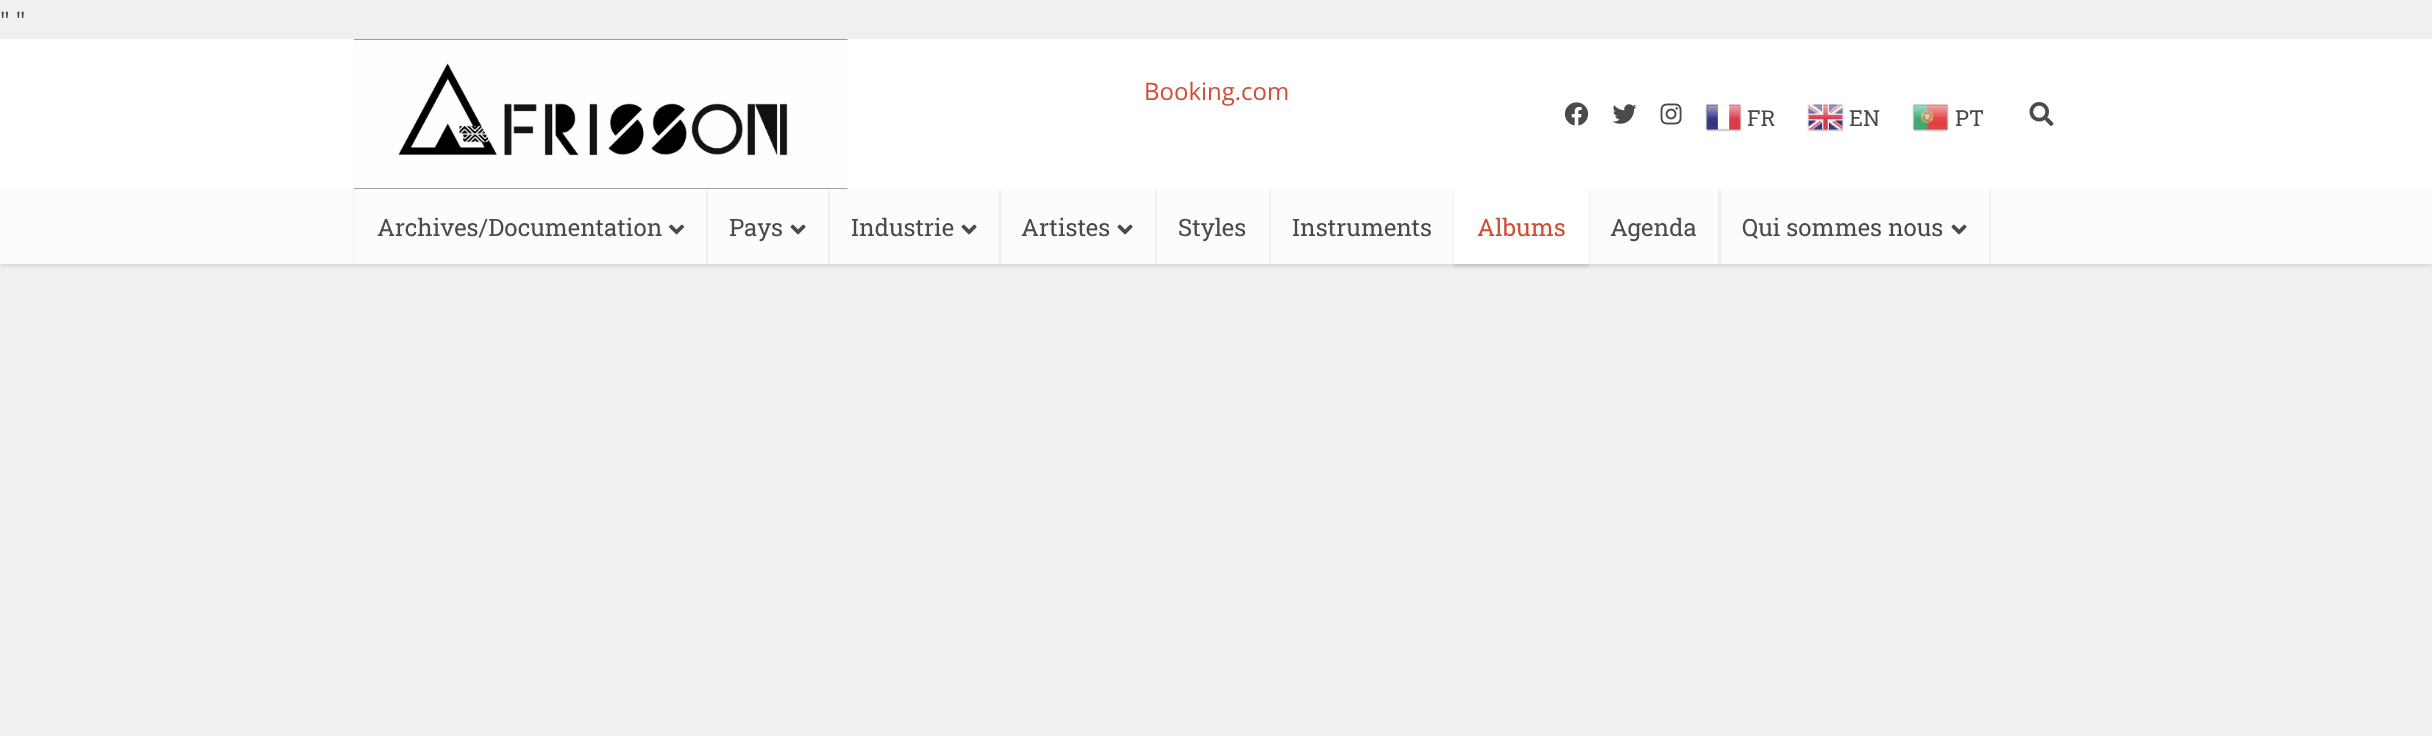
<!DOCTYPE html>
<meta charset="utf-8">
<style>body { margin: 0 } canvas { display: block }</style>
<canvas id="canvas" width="2432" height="736"></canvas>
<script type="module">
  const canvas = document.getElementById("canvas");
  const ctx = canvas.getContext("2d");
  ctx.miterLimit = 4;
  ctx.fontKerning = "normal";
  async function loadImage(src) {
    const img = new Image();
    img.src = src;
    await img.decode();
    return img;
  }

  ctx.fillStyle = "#f0f0f0";
  ctx.fillRect(0, 0, 2432, 736);
  ctx.font = "24px Open Sans";
  ctx.fillStyle = "#444444";
  ctx.fillText("\" \"", 0, 29);
  ctx.fillStyle = "rgba(0, 0, 0, 0.1)";
  ctx.filter = "blur(2px)";
  ctx.beginPath();
  ctx.rect(0, 41, 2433, 225);
  ctx.fill();
  ctx.filter = "none";
  ctx.fillStyle = "#ffffff";
  ctx.fillRect(0, 39, 2432, 150);
  ctx.drawImage(await loadImage("img1.png"), 354, 39, 494, 150);
  ctx.fillStyle = "#cf4d35";
  ctx.fillText("Booking.com", 1144, 100);
  ctx.drawImage(await loadImage("img2.png"), 1564, 102, 25, 24);
  ctx.drawImage(await loadImage("img3.png"), 1612, 104, 25, 20);
  ctx.drawImage(await loadImage("img4.png"), 1660, 103, 22, 22);
  ctx.drawImage(await loadImage("img5.png"), 1705, 104, 37, 28);
  ctx.font = "22px Roboto Slab";
  ctx.fillStyle = "#4a4a4a";
  ctx.fillText("FR", 1747, 126);
  ctx.drawImage(await loadImage("img6.png"), 1807, 104, 37, 28);
  ctx.fillText("EN", 1849, 126);
  ctx.drawImage(await loadImage("img7.png"), 1912, 104, 37, 28);
  ctx.fillText("PT", 1955, 126);
  ctx.drawImage(await loadImage("img8.png"), 2029, 102, 25, 24);
  ctx.fillStyle = "#fcfcfc";
  ctx.fillRect(0, 189, 2432, 75);
  ctx.fillStyle = "#efefef";
  ctx.fillRect(706, 189, 2, 75);
  ctx.fillRect(353, 189, 1, 75);
  ctx.font = "24px Roboto Slab";
  ctx.fillStyle = "#4a4a4a";
  ctx.fillText("Archives/Documentation", 377, 236);
  ctx.drawImage(await loadImage("img9.png"), 669, 224, 15, 11);
  ctx.fillStyle = "#efefef";
  ctx.fillRect(828, 189, 2, 75);
  ctx.fillStyle = "#4a4a4a";
  ctx.fillText("Pays", 729, 236);
  ctx.drawImage(await loadImage("img10.png"), 790, 224, 16, 11);
  ctx.fillStyle = "#efefef";
  ctx.fillRect(999, 189, 2, 75);
  ctx.fillStyle = "#4a4a4a";
  ctx.fillText("Industrie", 851, 236);
  ctx.drawImage(await loadImage("img10.png"), 961, 224, 16, 11);
  ctx.fillStyle = "#efefef";
  ctx.fillRect(1155, 189, 2, 75);
  ctx.fillStyle = "#4a4a4a";
  ctx.fillText("Artistes", 1021, 236);
  ctx.drawImage(await loadImage("img10.png"), 1117, 224, 16, 11);
  ctx.fillStyle = "#efefef";
  ctx.fillRect(1269, 189, 2, 75);
  ctx.fillStyle = "#4a4a4a";
  ctx.fillText("Styles", 1178, 236);
  ctx.fillText("Instruments", 1292, 236);
  ctx.fillStyle = "rgba(0, 0, 0, 0.1)";
  ctx.filter = "blur(1.5px)";
  ctx.beginPath();
  ctx.rect(1454, 192, 135, 75);
  ctx.fill();
  ctx.filter = "none";
  ctx.fillStyle = "#ffffff";
  ctx.fillRect(1454, 189, 135, 75);
  ctx.fillStyle = "#cf4d35";
  ctx.fillText("Albums", 1477, 236);
  ctx.fillStyle = "#efefef";
  ctx.fillRect(1718, 189, 3, 75);
  ctx.fillStyle = "#4a4a4a";
  ctx.fillText("Agenda", 1610, 236);
  ctx.fillStyle = "#efefef";
  ctx.fillRect(1989, 189, 2, 75);
  ctx.fillStyle = "#4a4a4a";
  ctx.fillText("Qui sommes nous", 1742, 236);
  ctx.drawImage(await loadImage("img10.png"), 1951, 224, 16, 11);
</script>
